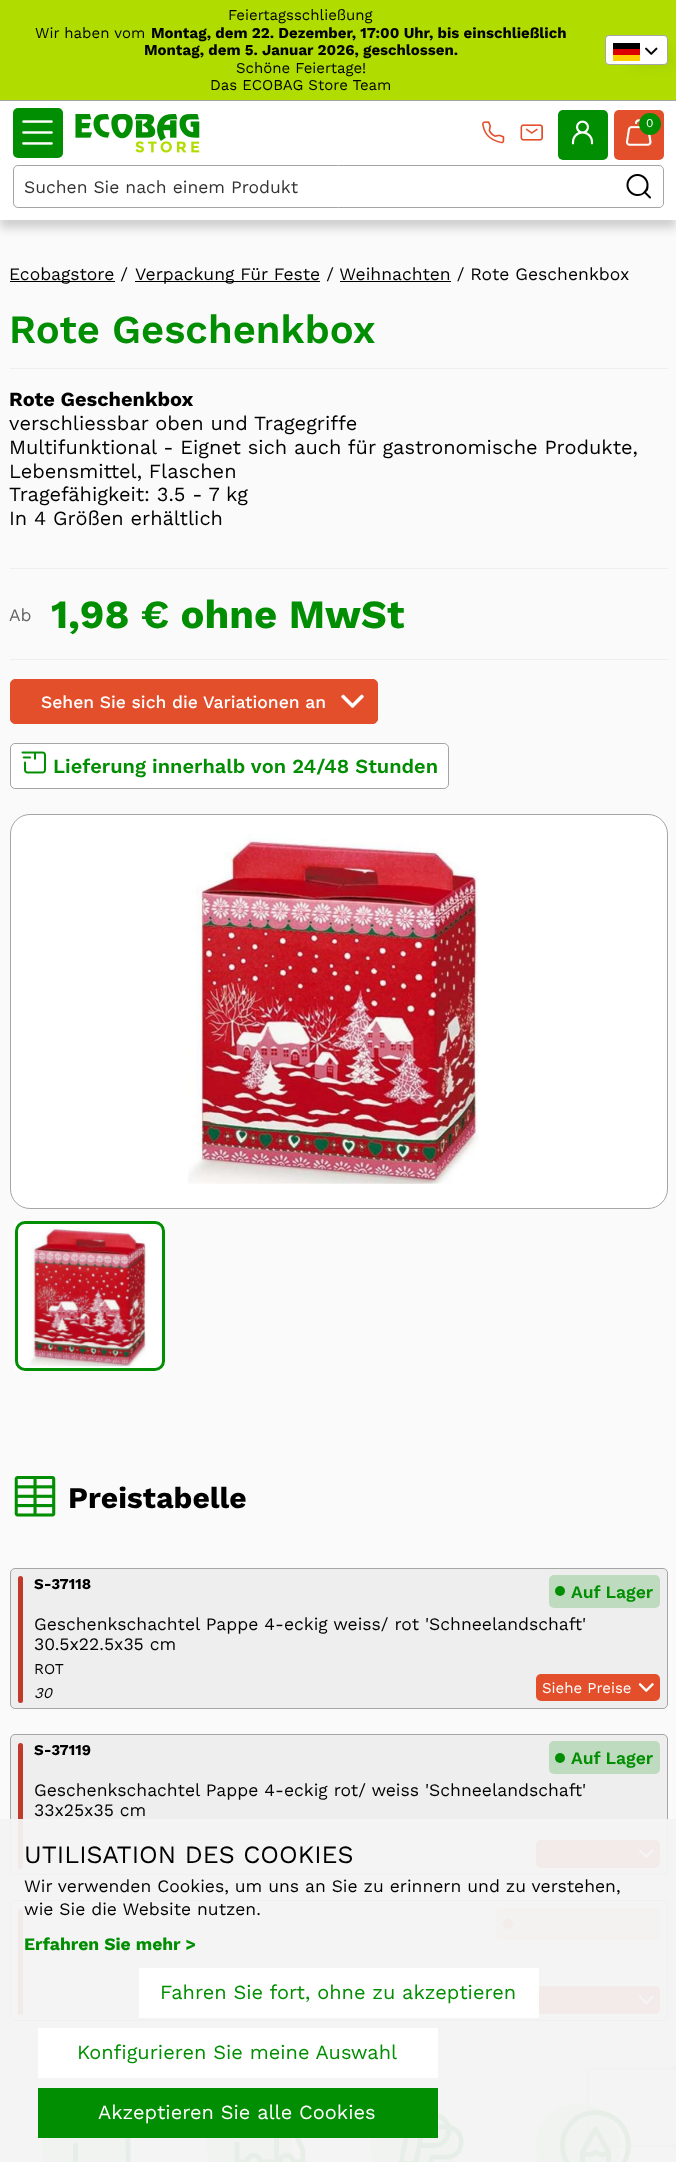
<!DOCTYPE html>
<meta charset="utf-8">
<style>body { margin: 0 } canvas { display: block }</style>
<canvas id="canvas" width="676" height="2162"></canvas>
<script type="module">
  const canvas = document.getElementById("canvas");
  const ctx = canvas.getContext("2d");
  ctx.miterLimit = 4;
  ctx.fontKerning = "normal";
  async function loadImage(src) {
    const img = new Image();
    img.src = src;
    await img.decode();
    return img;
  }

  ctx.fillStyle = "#fafafa";
  ctx.fillRect(0, 0, 676, 2162);
  ctx.fillStyle = "#cfcfcf";
  ctx.filter = "blur(5px)";
  ctx.beginPath();
  ctx.rect(0, 8, 676, 220);
  ctx.fill();
  ctx.filter = "none";
  ctx.fillStyle = "#ffffff";
  ctx.fillRect(0, 101, 676, 119);
  ctx.fillStyle = "#b0dc00";
  ctx.fillRect(0, 0, 676, 100);
  ctx.fillStyle = "#a5a5a5";
  ctx.fillRect(0, 100, 676, 1);
  ctx.font = "15px Work Sans";
  ctx.fillStyle = "#000000";
  ctx.fillText("Feiertagsschließung", 228, 20);
  ctx.fillText("Wir haben vom", 35, 38);
  ctx.font = "bold 15px Work Sans";
  ctx.fillText("Montag, dem 22. Dezember, 17:00 Uhr, bis einschließlich", 151, 38);
  ctx.fillText("Montag, dem 5. Januar 2026, geschlossen.", 144, 55);
  ctx.font = "15px Work Sans";
  ctx.fillText("Schöne Feiertage!", 236, 73);
  ctx.fillText("Das ECOBAG Store Team", 210, 90);
  ctx.fillStyle = "rgba(0, 0, 0, 0.16)";
  ctx.filter = "blur(8px)";
  ctx.beginPath();
  ctx.rect(631, 54, 40, 7);
  ctx.fill();
  ctx.filter = "none";
  ctx.fillStyle = "#ffffff";
  ctx.beginPath();
  ctx.roundRect(605.5, 35.5, 62, 29, 3.5);
  ctx.fill();
  ctx.strokeStyle = "#a5a5a5";
  ctx.stroke();
  ctx.fillStyle = "#000000";
  ctx.fillRect(613, 43, 27, 6);
  ctx.fillStyle = "#dd0000";
  ctx.fillRect(613, 49, 27, 6);
  ctx.fillStyle = "#ffce00";
  ctx.fillRect(613, 55, 27, 6);
  ctx.drawImage(await loadImage("img1.png"), 645, 47, 13, 8);
  ctx.fillStyle = "#028e02";
  ctx.beginPath();
  ctx.roundRect(13, 108, 50, 50, 5);
  ctx.fill();
  ctx.drawImage(await loadImage("img2.png"), 22, 120, 31, 25);
  ctx.drawImage(await loadImage("img3.png"), 482, 121, 23, 23);
  ctx.drawImage(await loadImage("img4.png"), 520, 124, 23, 17);
  ctx.beginPath();
  ctx.roundRect(558, 110, 50, 50, 5);
  ctx.fill();
  ctx.drawImage(await loadImage("img5.png"), 571, 120, 23, 25);
  ctx.fillStyle = "#e34f2b";
  ctx.beginPath();
  ctx.roundRect(614, 110, 50, 50, 5);
  ctx.fill();
  ctx.drawImage(await loadImage("img6.png"), 626, 119, 26, 27);
  ctx.fillStyle = "#028e02";
  ctx.beginPath();
  ctx.arc(650, 124, 11, 0, Math.PI * 2);
  ctx.fill();
  ctx.font = "12px Work Sans";
  ctx.fillStyle = "#ffffff";
  ctx.fillText("0", 646, 127);
  ctx.drawImage(await loadImage("img7.png"), 75, 114, 125, 39);
  ctx.beginPath();
  ctx.roundRect(13.5, 165.5, 650, 42, 4.5);
  ctx.stroke();
  ctx.font = "17.5px Work Sans";
  ctx.fillStyle = "#333333";
  ctx.fillText("Suchen Sie nach einem Produkt", 24, 193);
  ctx.drawImage(await loadImage("img8.png"), 626, 174, 25, 25);
  ctx.fillStyle = "#000000";
  ctx.fillRect(10, 281, 105, 1);
  ctx.fillText("Ecobagstore /", 9, 280);
  ctx.fillRect(135, 281, 185, 1);
  ctx.fillText("Verpackung Für Feste / Weihnachten / Rote Geschenkbox", 135, 280);
  ctx.fillRect(340, 281, 111, 1);
  ctx.fillStyle = "#eeeeee";
  ctx.fillRect(10, 368, 658, 1);
  ctx.font = "600 40px Work Sans";
  ctx.fillStyle = "#028e02";
  ctx.fillText("Rote Geschenkbox", 9, 343);
  ctx.font = "bold 20px Work Sans";
  ctx.fillStyle = "#000000";
  ctx.fillText("Rote Geschenkbox", 9, 406);
  ctx.font = "20px Work Sans";
  ctx.fillText("verschliessbar oben und Tragegriffe", 9, 430);
  ctx.fillText("Multifunktional - Eignet sich auch für gastronomische Produkte,", 9, 454);
  ctx.fillText("Lebensmittel, Flaschen", 9, 478);
  ctx.fillText("Tragefähigkeit: 3.5 - 7 kg", 9, 501);
  ctx.fillText("In 4 Größen erhältlich", 9, 525);
  ctx.fillStyle = "#eeeeee";
  ctx.fillRect(10, 568, 658, 1);
  ctx.fillRect(10, 659, 658, 1);
  ctx.font = "17.5px Work Sans";
  ctx.fillStyle = "#646464";
  ctx.fillText("Ab", 9, 621);
  ctx.font = "bold 40px Work Sans";
  ctx.fillStyle = "#028e02";
  ctx.fillText("1,98 € ohne MwSt", 51, 628);
  ctx.fillStyle = "#e34f2b";
  ctx.beginPath();
  ctx.roundRect(10.5, 679.5, 367, 44, 4.5);
  ctx.fill();
  ctx.strokeStyle = "#e34f2b";
  ctx.stroke();
  ctx.font = "500 17.5px Work Sans";
  ctx.fillStyle = "#ffffff";
  ctx.fillText("Sehen Sie sich die Variationen an", 41, 708);
  ctx.drawImage(await loadImage("img9.png"), 341, 694, 23, 14);
  ctx.beginPath();
  ctx.roundRect(10.5, 743.5, 438, 45, 4.5);
  ctx.fill();
  ctx.strokeStyle = "#a5a5a5";
  ctx.stroke();
  ctx.drawImage(await loadImage("img10.png"), 21, 751, 25, 23);
  ctx.font = "600 20px Work Sans";
  ctx.fillStyle = "#028e02";
  ctx.fillText("Lieferung innerhalb von 24/48 Stunden", 53, 773);
  ctx.fillStyle = "#ffffff";
  ctx.beginPath();
  ctx.roundRect(10.5, 814.5, 657, 394, 19.5);
  ctx.fill();
  ctx.stroke();
  ctx.drawImage(await loadImage("img11.png"), 188, 834, 291, 350);
  ctx.fillRect(15, 1221, 150, 150);
  ctx.beginPath();
  ctx.roundRect(16.5, 1222.5, 147, 147, 8.5);
  ctx.strokeStyle = "#028e02";
  ctx.lineWidth = 3;
  ctx.stroke();
  ctx.drawImage(await loadImage("img12.png"), 29, 1226, 117, 141);
  ctx.drawImage(await loadImage("img13.png"), 14, 1476, 42, 41);
  ctx.font = "bold 30px Work Sans";
  ctx.fillStyle = "#000000";
  ctx.fillText("Preistabelle", 68, 1508);
  ctx.fillStyle = "#eeeeee";
  ctx.beginPath();
  ctx.roundRect(10.5, 1568.5, 657, 140, 4.5);
  ctx.fill();
  ctx.strokeStyle = "#a5a5a5";
  ctx.lineWidth = 1;
  ctx.stroke();
  ctx.fillStyle = "#c0392b";
  ctx.beginPath();
  ctx.roundRect(18, 1576, 5, 127, 2.5);
  ctx.fill();
  ctx.font = "bold 15px Work Sans";
  ctx.fillStyle = "#000000";
  ctx.fillText("S-37118", 34, 1589);
  ctx.fillStyle = "#bfdbbf";
  ctx.beginPath();
  ctx.roundRect(549, 1575, 111, 33, 5);
  ctx.fill();
  ctx.fillStyle = "#028e02";
  ctx.beginPath();
  ctx.arc(560, 1591, 5, 0, Math.PI * 2);
  ctx.fill();
  ctx.font = "600 17.5px Work Sans";
  ctx.fillText("Auf Lager", 571, 1598);
  ctx.font = "17.5px Work Sans";
  ctx.fillStyle = "#000000";
  ctx.fillText("Geschenkschachtel Pappe 4-eckig weiss/ rot 'Schneelandschaft'", 34, 1630);
  ctx.fillText("30.5x22.5x35 cm", 34, 1650);
  ctx.font = "15px Work Sans";
  ctx.fillText("ROT", 34, 1674);
  ctx.font = "italic 15px Work Sans";
  ctx.fillText("30", 34, 1698);
  ctx.fillStyle = "#e34f2b";
  ctx.beginPath();
  ctx.roundRect(536, 1674, 124, 27, 5);
  ctx.fill();
  ctx.font = "15px Work Sans";
  ctx.fillStyle = "#ffffff";
  ctx.fillText("Siehe Preise", 542, 1693);
  ctx.drawImage(await loadImage("img14.png"), 638, 1683, 16, 9);
  ctx.fillStyle = "#eeeeee";
  ctx.beginPath();
  ctx.roundRect(10.5, 1734.5, 657, 140, 4.5);
  ctx.fill();
  ctx.stroke();
  ctx.fillStyle = "#c0392b";
  ctx.beginPath();
  ctx.roundRect(18, 1743, 5, 126, 2.5);
  ctx.fill();
  ctx.font = "bold 15px Work Sans";
  ctx.fillStyle = "#000000";
  ctx.fillText("S-37119", 34, 1755);
  ctx.fillStyle = "#bfdbbf";
  ctx.beginPath();
  ctx.roundRect(549, 1741, 111, 33, 5);
  ctx.fill();
  ctx.fillStyle = "#028e02";
  ctx.beginPath();
  ctx.arc(560, 1758, 5, 0, Math.PI * 2);
  ctx.fill();
  ctx.font = "600 17.5px Work Sans";
  ctx.fillText("Auf Lager", 571, 1764);
  ctx.font = "17.5px Work Sans";
  ctx.fillStyle = "#000000";
  ctx.fillText("Geschenkschachtel Pappe 4-eckig rot/ weiss 'Schneelandschaft'", 34, 1796);
  ctx.fillText("33x25x35 cm", 34, 1816);
  ctx.fillStyle = "#e34f2b";
  ctx.beginPath();
  ctx.roundRect(536, 1840, 124, 28, 5);
  ctx.fill();
  ctx.drawImage(await loadImage("img15.png"), 638, 1849, 16, 10);
  ctx.fillStyle = "#eeeeee";
  ctx.beginPath();
  ctx.roundRect(10.5, 1900.5, 657, 120, 4.5);
  ctx.fill();
  ctx.stroke();
  ctx.fillStyle = "#c0392b";
  ctx.beginPath();
  ctx.roundRect(18, 1909, 5, 106, 2.5);
  ctx.fill();
  ctx.fillStyle = "#eccec7";
  ctx.beginPath();
  ctx.roundRect(496, 1908, 164, 32, 5);
  ctx.fill();
  ctx.fillStyle = "#e34f2b";
  ctx.beginPath();
  ctx.arc(508, 1924, 5, 0, Math.PI * 2);
  ctx.fill();
  ctx.beginPath();
  ctx.roundRect(536, 1986, 124, 28, 5);
  ctx.fill();
  ctx.drawImage(await loadImage("img16.png"), 638, 1995, 16, 10);
  ctx.beginPath();
  ctx.moveTo(68.5, 2119);
  ctx.lineTo(121.5, 2119);
  ctx.bezierCurveTo(125, 2119, 128, 2122, 128, 2125.5);
  ctx.lineTo(128, 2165);
  ctx.bezierCurveTo(128, 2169, 125, 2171.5, 121.5, 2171.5);
  ctx.lineTo(82, 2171.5);
  ctx.bezierCurveTo(78.5, 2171.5, 75.5, 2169, 75.5, 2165);
  ctx.lineTo(75.5, 2145.5);
  ctx.strokeStyle = "#028e02";
  ctx.lineWidth = 4.9;
  ctx.lineCap = "round";
  ctx.lineJoin = "round";
  ctx.stroke();
  ctx.fillStyle = "rgba(2, 142, 2, 0.2)";
  ctx.beginPath();
  ctx.roundRect(41, 2103, 86, 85, 42.5);
  ctx.fill();
  ctx.drawImage(await loadImage("img17.png"), 206, 2138, 100, 24);
  ctx.beginPath();
  ctx.moveTo(401, 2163.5);
  ctx.lineTo(410.5, 2115.5);
  ctx.lineTo(433.5, 2115.5);
  ctx.bezierCurveTo(453.5, 2115.5, 453.5, 2145.5, 433.5, 2145.5);
  ctx.lineTo(419.5, 2145.5);
  ctx.lineTo(415.5, 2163.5);
  ctx.closePath();
  ctx.stroke();
  ctx.beginPath();
  ctx.moveTo(413.5, 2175);
  ctx.lineTo(423, 2127);
  ctx.lineTo(446.5, 2127);
  ctx.bezierCurveTo(466, 2127, 466, 2157, 446.5, 2157);
  ctx.lineTo(432, 2157);
  ctx.lineTo(428, 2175);
  ctx.closePath();
  ctx.stroke();
  ctx.beginPath();
  ctx.roundRect(370, 2103, 86, 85, 42.5);
  ctx.fill();
  ctx.beginPath();
  ctx.moveTo(595.5, 2112.5);
  ctx.bezierCurveTo(577, 2112.5, 562.5, 2127, 562.5, 2145.5);
  ctx.bezierCurveTo(562.5, 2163.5, 577, 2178.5, 595.5, 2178.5);
  ctx.bezierCurveTo(613.5, 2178.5, 628.5, 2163.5, 628.5, 2145.5);
  ctx.bezierCurveTo(628.5, 2127, 613.5, 2112.5, 595.5, 2112.5);
  ctx.closePath();
  ctx.stroke();
  ctx.beginPath();
  ctx.moveTo(582.5, 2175.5);
  ctx.lineTo(582.5, 2152);
  ctx.lineTo(595.5, 2129);
  ctx.lineTo(608.5, 2152);
  ctx.lineTo(608.5, 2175.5);
  ctx.moveTo(582.5, 2152);
  ctx.bezierCurveTo(587, 2156, 591, 2156, 595.5, 2152);
  ctx.bezierCurveTo(600, 2156, 604, 2156, 608.5, 2152);
  ctx.stroke();
  ctx.beginPath();
  ctx.roundRect(535, 2103, 86, 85, 42.5);
  ctx.fill();
  ctx.save();
  ctx.beginPath();
  ctx.moveTo(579, 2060);
  ctx.lineTo(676, 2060);
  ctx.lineTo(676, 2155);
  ctx.lineTo(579, 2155);
  ctx.closePath();
  ctx.moveTo(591.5, 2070);
  ctx.lineTo(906.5, 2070);
  ctx.bezierCurveTo(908, 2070, 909, 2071, 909, 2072.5);
  ctx.lineTo(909, 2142.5);
  ctx.bezierCurveTo(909, 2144, 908, 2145, 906.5, 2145);
  ctx.lineTo(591.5, 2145);
  ctx.bezierCurveTo(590, 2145, 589, 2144, 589, 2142.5);
  ctx.lineTo(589, 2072.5);
  ctx.bezierCurveTo(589, 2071, 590, 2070, 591.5, 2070);
  ctx.closePath();
  ctx.clip("evenodd");
  ctx.fillStyle = "#808080";
  ctx.filter = "blur(3px)";
  ctx.beginPath();
  ctx.roundRect(589, 2070, 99, 75, 2.5);
  ctx.fill();
  ctx.filter = "none";
  ctx.restore();
  ctx.fillStyle = "rgba(243, 243, 243, 0.95)";
  ctx.fillRect(0, 1819, 676, 343);
  ctx.font = "25px Work Sans";
  ctx.fillStyle = "#000000";
  ctx.fillText("UTILISATION DES COOKIES", 24, 1863);
  ctx.font = "17.5px Work Sans";
  ctx.fillText("Wir verwenden Cookies, um uns an Sie zu erinnern und zu verstehen,", 24, 1892);
  ctx.fillText("wie Sie die Website nutzen.", 24, 1915);
  ctx.font = "bold 17.5px Work Sans";
  ctx.fillStyle = "#028e02";
  ctx.fillText("Erfahren Sie mehr >", 24, 1950);
  ctx.fillStyle = "#ffffff";
  ctx.fillRect(139, 1968, 400, 50);
  ctx.font = "20px Work Sans";
  ctx.fillStyle = "#028e02";
  ctx.fillText("Fahren Sie fort, ohne zu akzeptieren", 160, 1999);
  ctx.fillStyle = "#ffffff";
  ctx.fillRect(38, 2028, 400, 50);
  ctx.fillStyle = "#028e02";
  ctx.fillText("Konfigurieren Sie meine Auswahl", 77, 2059);
  ctx.fillRect(38, 2088, 400, 50);
  ctx.fillStyle = "#ffffff";
  ctx.fillText("Akzeptieren Sie alle Cookies", 98, 2119);
</script>
